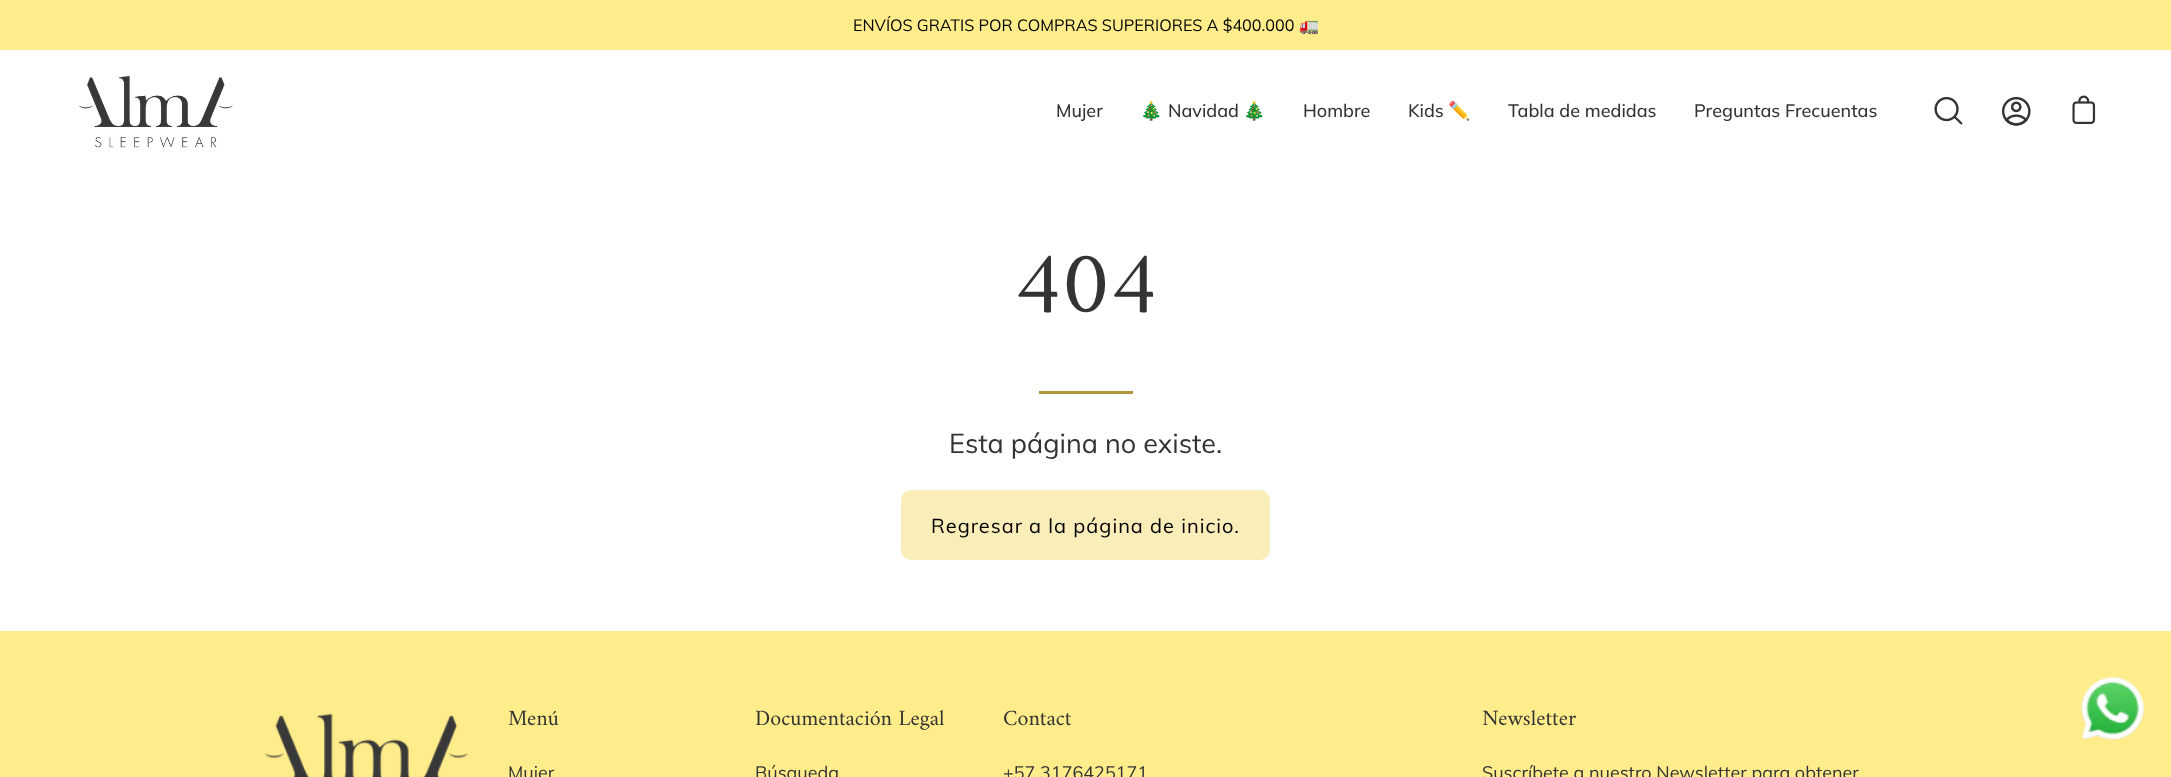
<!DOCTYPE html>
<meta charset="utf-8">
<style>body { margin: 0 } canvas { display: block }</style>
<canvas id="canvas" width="2171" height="777"></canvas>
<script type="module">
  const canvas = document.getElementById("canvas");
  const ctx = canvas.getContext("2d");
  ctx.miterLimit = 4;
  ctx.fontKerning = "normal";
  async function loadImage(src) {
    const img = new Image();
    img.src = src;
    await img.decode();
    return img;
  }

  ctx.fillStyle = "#ffffff";
  ctx.fillRect(0, 0, 2171, 777);
  ctx.fillStyle = "#ffed8c";
  ctx.fillRect(0, 0, 2171, 50);
  ctx.font = "16.2px Muli";
  ctx.fillStyle = "#000000";
  ctx.fillText("ENVÍOS GRATIS POR COMPRAS SUPERIORES A $400.000", 853, 31);
  ctx.font = "16.2px Noto Color Emoji";
  ctx.fillText("🚛", 1299, 31);
  ctx.drawImage(await loadImage("img1.png"), 78, 76, 155, 72);
  ctx.font = "500 18px Muli";
  ctx.fillStyle = "#333333";
  ctx.fillText("Mujer", 1056, 117);
  ctx.font = "18px Noto Color Emoji";
  ctx.fillText("🎄", 1140, 117);
  ctx.font = "500 18px Muli";
  ctx.fillText("Navidad", 1168, 117);
  ctx.font = "18px Noto Color Emoji";
  ctx.fillText("🎄", 1243, 117);
  ctx.font = "500 18px Muli";
  ctx.fillText("Hombre", 1303, 117);
  ctx.fillText("Kids", 1408, 117);
  ctx.font = "18px Noto Color Emoji";
  ctx.fillText("✏️", 1448, 117);
  ctx.font = "500 18px Muli";
  ctx.fillText("Tabla de medidas", 1508, 117);
  ctx.fillText("Preguntas Frecuentas", 1694, 117);
  ctx.drawImage(await loadImage("img2.png"), 1934, 96, 29, 29);
  ctx.drawImage(await loadImage("img3.png"), 2001, 96, 30, 30);
  ctx.drawImage(await loadImage("img4.png"), 2072, 95, 24, 29);
  ctx.font = "90px Amiri";
  ctx.fillText("404", 1014, 312);
  ctx.fillStyle = "#b3953e";
  ctx.fillRect(1039, 391, 94, 3);
  ctx.font = "27px Muli";
  ctx.fillStyle = "#333333";
  ctx.fillText("Esta página no existe.", 949, 453);
  ctx.fillStyle = "#f9edba";
  ctx.beginPath();
  ctx.roundRect(902.5, 491.5, 366, 67, 8.5);
  ctx.fill();
  ctx.strokeStyle = "#f9edba";
  ctx.lineWidth = 3;
  ctx.stroke();
  ctx.letterSpacing = "1px";
  ctx.font = "20px Muli";
  ctx.fillStyle = "#000000";
  ctx.fillText("Regresar a la página de inicio.", 931, 533);
  ctx.fillStyle = "#ffed8c";
  ctx.fillRect(0, 631, 2171, 146);
  ctx.drawImage(await loadImage("img5.png"), 264, 713, 204, 64);
  ctx.letterSpacing = "0px";
  ctx.font = "22px Amiri";
  ctx.fillStyle = "#333333";
  ctx.fillText("Menú", 508, 725);
  ctx.font = "18px Muli";
  ctx.fillText("Mujer", 508, 779);
  ctx.font = "22px Amiri";
  ctx.fillText("Documentación Legal", 755, 725);
  ctx.font = "18px Muli";
  ctx.fillText("Búsqueda", 755, 779);
  ctx.font = "22px Amiri";
  ctx.fillText("Contact", 1003, 725);
  ctx.font = "18px Muli";
  ctx.fillText("+57 3176425171", 1003, 779);
  ctx.font = "22px Amiri";
  ctx.fillText("Newsletter", 1482, 725);
  ctx.font = "18px Muli";
  ctx.fillText("Suscríbete a nuestro Newsletter para obtener", 1482, 779);
  ctx.drawImage(await loadImage("img6.png"), 2080, 677, 64, 63);
</script>
